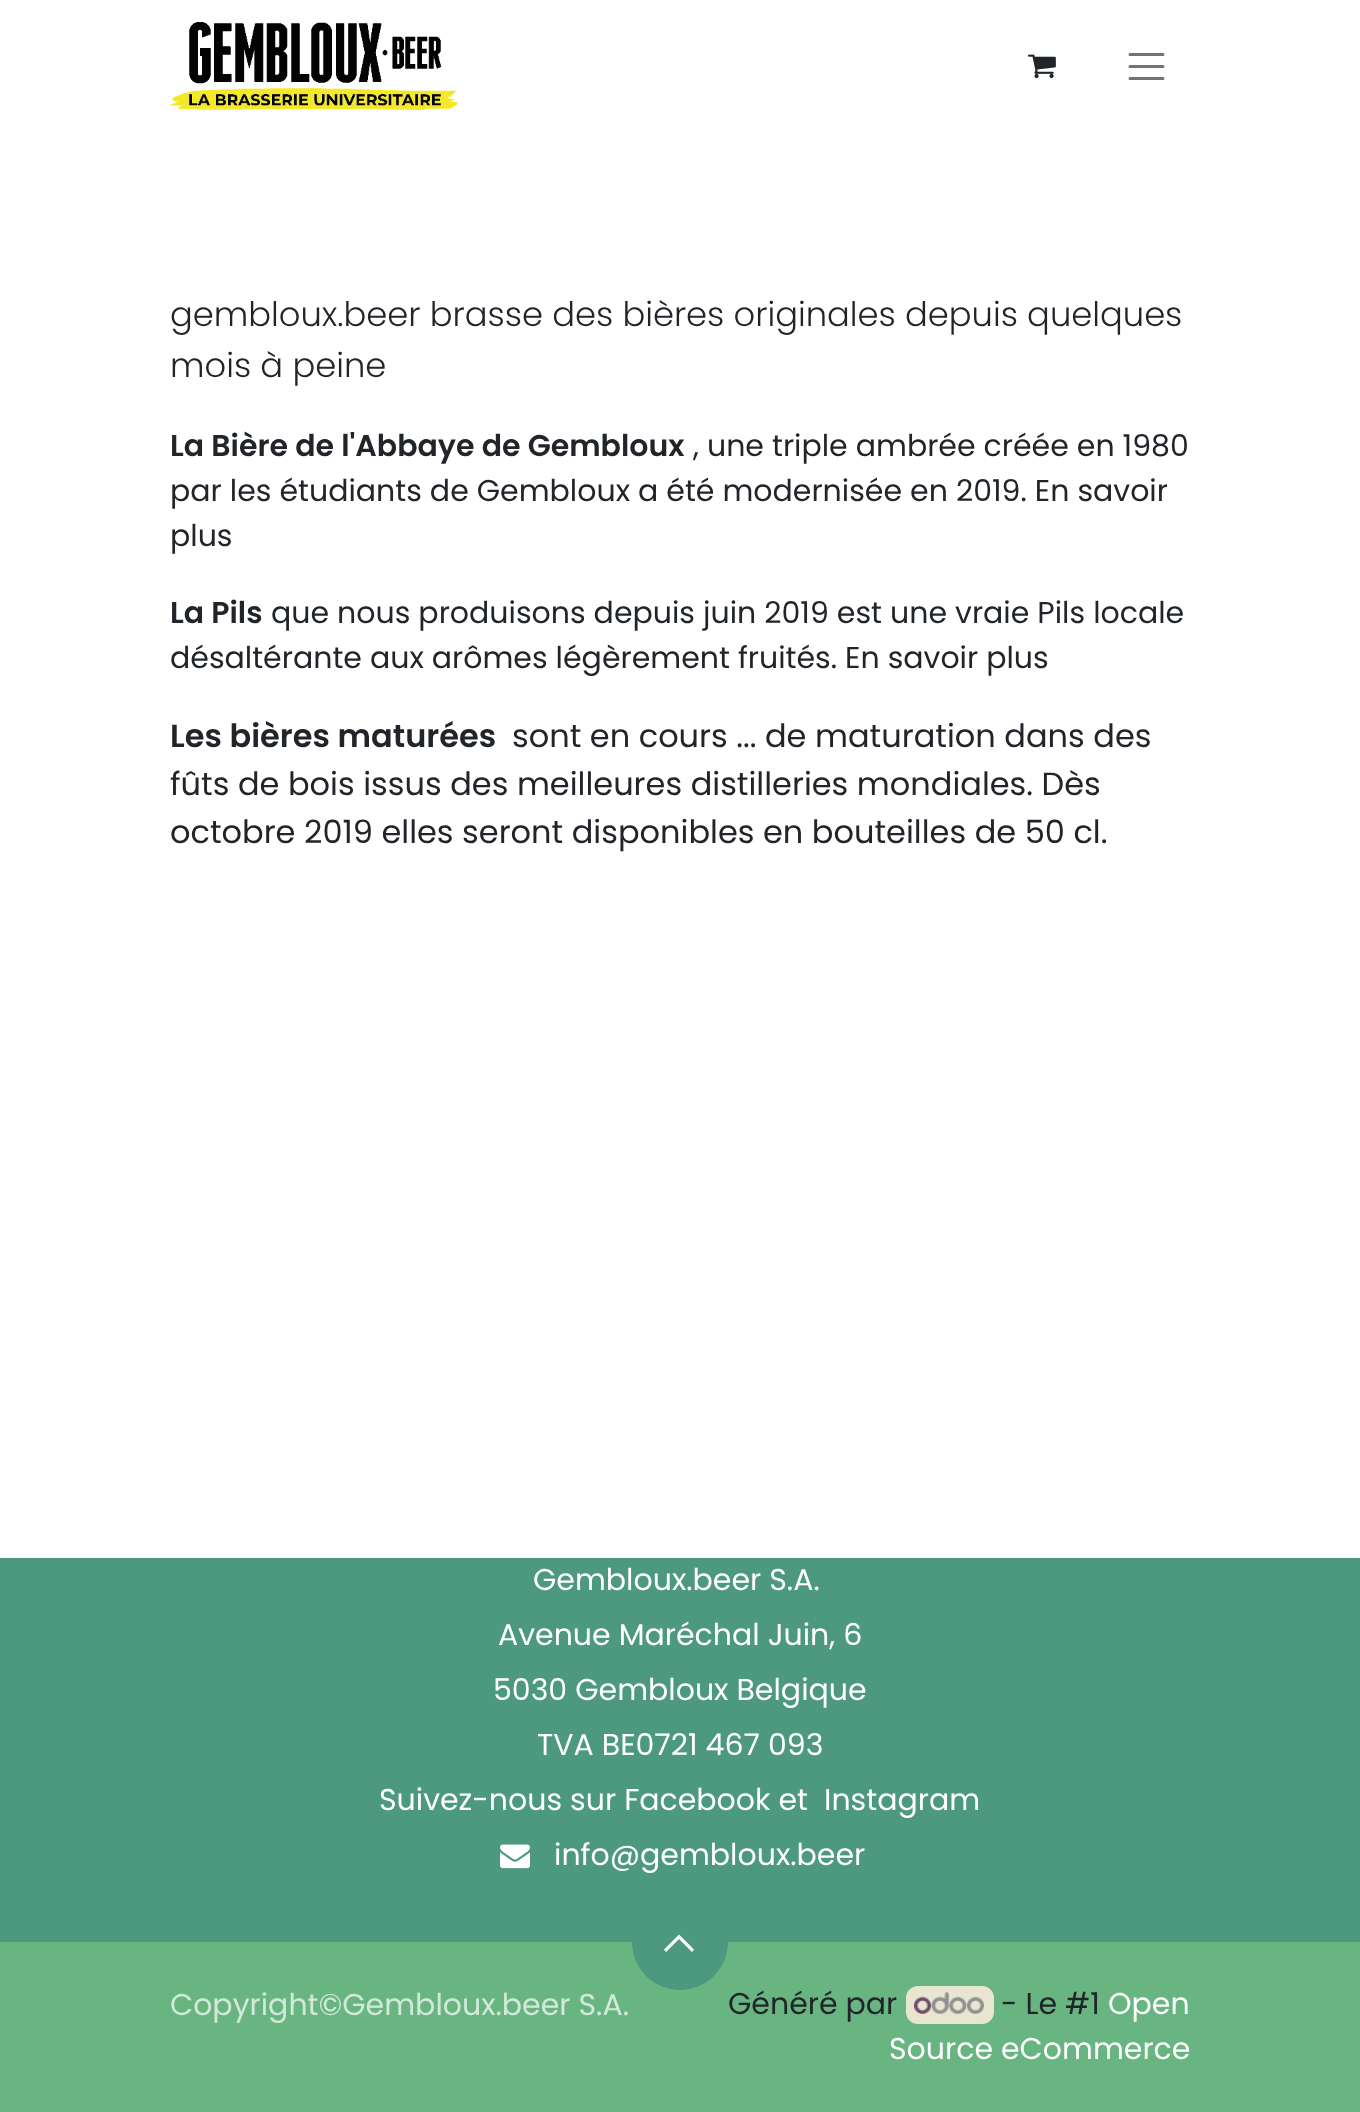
<!DOCTYPE html>
<meta charset="utf-8">
<style>body { margin: 0 } canvas { display: block }</style>
<canvas id="canvas" width="1360" height="2112"></canvas>
<script type="module">
  const canvas = document.getElementById("canvas");
  const ctx = canvas.getContext("2d");
  ctx.miterLimit = 4;
  ctx.fontKerning = "normal";
  async function loadImage(src) {
    const img = new Image();
    img.src = src;
    await img.decode();
    return img;
  }

  ctx.fillStyle = "#ffffff";
  ctx.fillRect(0, 0, 1360, 2112);
  ctx.drawImage(await loadImage("img1.png"), 170, 22, 288, 88);
  ctx.drawImage(await loadImage("img2.png"), 1028, 54, 28, 25);
  ctx.beginPath();
  ctx.moveTo(1130, 54.5);
  ctx.lineTo(1163, 54.5);
  ctx.moveTo(1130, 66.5);
  ctx.lineTo(1163, 66.5);
  ctx.moveTo(1130, 78.5);
  ctx.lineTo(1163, 78.5);
  ctx.strokeStyle = "#737373";
  ctx.lineWidth = 3;
  ctx.lineCap = "round";
  ctx.stroke();
  ctx.font = "300 33.75px Poppins";
  ctx.fillStyle = "#212529";
  ctx.fillText("gembloux.beer brasse des bières originales depuis quelques", 170, 326);
  ctx.fillText("mois à peine", 170, 377);
  ctx.font = "600 30px Poppins";
  ctx.fillText("La Bière de l'Abbaye de Gembloux", 170, 456);
  ctx.font = "30px Poppins";
  ctx.fillText(", une triple ambrée créée en 1980", 693, 456);
  ctx.fillText("par les étudiants de Gembloux a été modernisée en 2019. En savoir", 170, 501);
  ctx.fillText("plus", 170, 546);
  ctx.font = "600 30px Poppins";
  ctx.fillText("La Pils", 170, 623);
  ctx.font = "30px Poppins";
  ctx.fillText("que nous produisons depuis juin 2019 est une vraie Pils locale", 271, 623);
  ctx.fillText("désaltérante aux arômes légèrement fruités. En savoir plus", 170, 668);
  ctx.font = "600 32px Poppins";
  ctx.fillText("Les bières maturées", 170, 747);
  ctx.font = "32px Poppins";
  ctx.fillText("sont en cours ... de maturation dans des", 512, 747);
  ctx.fillText("fûts de bois issus des meilleures distilleries mondiales. Dès", 170, 795);
  ctx.fillText("octobre 2019 elles seront disponibles en bouteilles de 50 cl.", 170, 843);
  ctx.fillStyle = "#4c997f";
  ctx.fillRect(0, 1558, 1360, 384);
  ctx.font = "30px Poppins";
  ctx.fillStyle = "#ffffff";
  ctx.fillText("Gembloux.beer S.A.", 533, 1590);
  ctx.fillText("Avenue Maréchal Juin, 6", 498, 1645);
  ctx.fillText("5030 Gembloux Belgique", 493, 1700);
  ctx.fillText("TVA BE0721 467 093", 537, 1755);
  ctx.fillText("Suivez-nous sur Facebook et", 379, 1810);
  ctx.fillText("Instagram", 824, 1810);
  ctx.drawImage(await loadImage("img3.png"), 500, 1844, 30, 25);
  ctx.fillText("info@gembloux.beer", 554, 1865);
  ctx.fillStyle = "#68b581";
  ctx.fillRect(0, 1942, 1360, 170);
  ctx.fillStyle = "#4c997f";
  ctx.beginPath();
  ctx.arc(680, 1942, 48, 0, Math.PI * 2);
  ctx.fill();
  ctx.fillStyle = "#ffffff";
  ctx.beginPath();
  ctx.moveTo(679, 1934.5);
  ctx.lineTo(694, 1949.5);
  ctx.lineTo(692, 1952);
  ctx.lineTo(679, 1939);
  ctx.lineTo(666, 1952);
  ctx.lineTo(664, 1949.5);
  ctx.closePath();
  ctx.fill();
  ctx.fillStyle = "#d2e9d9";
  ctx.fillText("Copyright©Gembloux.beer S.A.", 170, 2015);
  ctx.fillStyle = "#212529";
  ctx.fillText("Généré par", 728, 2014);
  ctx.fillStyle = "#e8e6d1";
  ctx.beginPath();
  ctx.roundRect(906, 1986, 88, 38, 12);
  ctx.fill();
  ctx.drawImage(await loadImage("img4.png"), 914, 1992, 70, 22);
  ctx.fillStyle = "#212529";
  ctx.fillText("- Le #1", 1001, 2014);
  ctx.fillStyle = "#ffffff";
  ctx.fillText("Open", 1108, 2014);
  ctx.fillText("Source eCommerce", 889, 2059);
</script>
